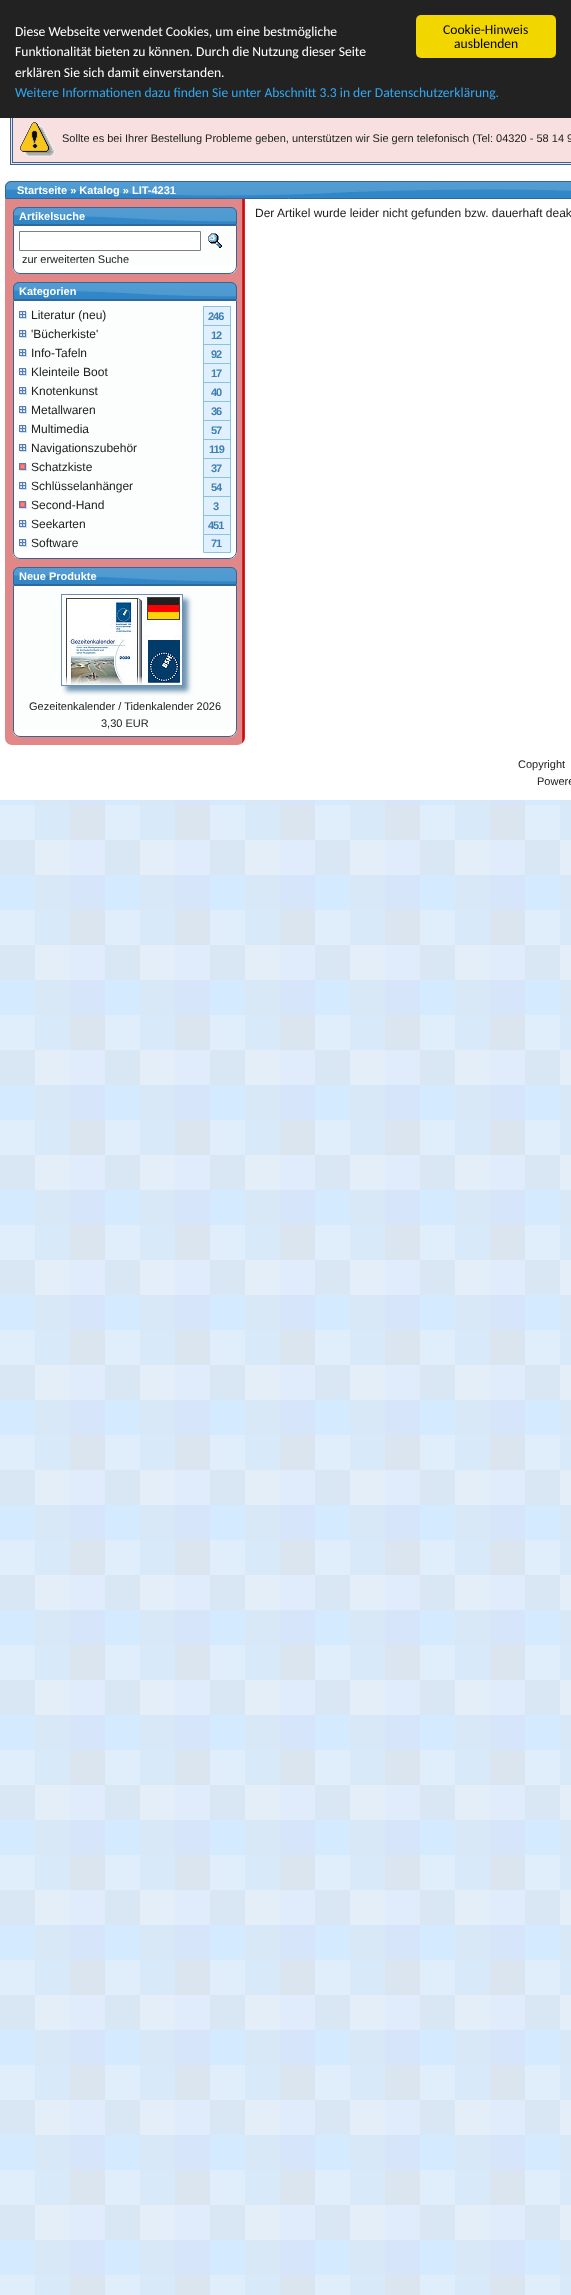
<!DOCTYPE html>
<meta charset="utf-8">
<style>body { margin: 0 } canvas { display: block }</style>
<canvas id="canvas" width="571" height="2295"></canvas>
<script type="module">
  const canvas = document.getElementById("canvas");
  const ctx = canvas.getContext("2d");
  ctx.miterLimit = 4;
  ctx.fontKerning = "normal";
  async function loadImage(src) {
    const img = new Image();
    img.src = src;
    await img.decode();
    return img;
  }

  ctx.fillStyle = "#ffffff";
  ctx.fillRect(0, 0, 571, 2295);
  ctx.drawImage(await loadImage("img1.png"), 0, 800, 571, 1495);
  ctx.fillStyle = "#f8e0e0";
  ctx.fillRect(11, 118, 560, 46);
  ctx.strokeStyle = "#336699";
  ctx.strokeRect(10.5, 113.5, 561, 51);
  ctx.strokeRect(12.5, 115.5, 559, 47);
  ctx.fillStyle = "#222222";
  ctx.fillRect(0, 0, 571, 118);
  ctx.fillStyle = "#f1d600";
  ctx.beginPath();
  ctx.roundRect(416, 15, 140, 43, 5);
  ctx.fill();
  ctx.font = "13.6px Carlito";
  ctx.fillStyle = "#000000";
  ctx.fillText("Cookie-Hinweis", 443, 34);
  ctx.fillText("ausblenden", 454, 48);
  ctx.fillStyle = "#ffffff";
  ctx.fillText("Diese Webseite verwendet Cookies, um eine bestmögliche", 15, 36);
  ctx.fillText("Funktionalität bieten zu können. Durch die Nutzung dieser Seite", 15, 56);
  ctx.fillText("erklären Sie sich damit einverstanden.", 15, 77);
  ctx.fillStyle = "#31a8f0";
  ctx.fillText("Weitere Informationen dazu finden Sie unter Abschnitt 3.3 in der Datenschutzerklärung.", 15, 97);
  ctx.drawImage(await loadImage("img2.png"), 20, 122, 35, 35);
  ctx.font = "11px Liberation Sans";
  ctx.fillStyle = "#202020";
  ctx.fillText("Sollte es bei Ihrer Bestellung Probleme geben, unterstützen wir Sie gern telefonisch (Tel: 04320 - 58 14 9", 62, 142);
  ctx.drawImage(await loadImage("img3.png"), 5, 181, 566, 17);
  ctx.beginPath();
  ctx.moveTo(11, 181.5);
  ctx.lineTo(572, 181.5);
  ctx.bezierCurveTo(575, 181.5, 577.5, 184, 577.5, 187);
  ctx.lineTo(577.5, 198.5);
  ctx.lineTo(5.5, 198.5);
  ctx.lineTo(5.5, 187);
  ctx.bezierCurveTo(5.5, 184, 8, 181.5, 11, 181.5);
  ctx.closePath();
  ctx.stroke();
  ctx.font = "bold 11px Liberation Sans";
  ctx.fillStyle = "#ffffff";
  ctx.fillText("Startseite » Katalog » LIT-4231", 17, 194);
  ctx.fillStyle = "#e18787";
  ctx.beginPath();
  ctx.roundRect(5, 199, 240, 546, [0, 0, 8, 7]);
  ctx.fill();
  ctx.drawImage(await loadImage("img4.png"), 242, 199, 3, 545);
  ctx.drawImage(await loadImage("img5.png"), 13, 207, 224, 17);
  ctx.beginPath();
  ctx.roundRect(13.5, 207.5, 223, 17, [5.5, 5.5, 0, 0]);
  ctx.stroke();
  ctx.fillStyle = "#ffffff";
  ctx.fillText("Artikelsuche", 19, 220);
  ctx.fillStyle = "#fcfdfd";
  ctx.beginPath();
  ctx.roundRect(13, 225, 224, 49, [0, 0, 8, 7]);
  ctx.fill();
  ctx.drawImage(await loadImage("img6.png"), 13, 266, 224, 7);
  ctx.beginPath();
  ctx.roundRect(13.5, 225.5, 223, 48, [0, 0, 7.5, 6.5]);
  ctx.stroke();
  ctx.fillStyle = "#ffffff";
  ctx.beginPath();
  ctx.rect(19.5, 231.5, 181, 19);
  ctx.fill();
  ctx.strokeStyle = "#808080";
  ctx.stroke();
  ctx.drawImage(await loadImage("img7.png"), 208, 233, 14, 15);
  ctx.font = "11px Liberation Sans";
  ctx.fillStyle = "#202020";
  ctx.fillText("zur erweiterten Suche", 22, 263);
  ctx.drawImage(await loadImage("img5.png"), 13, 282, 224, 17);
  ctx.beginPath();
  ctx.roundRect(13.5, 282.5, 223, 17, [5.5, 5.5, 0, 0]);
  ctx.strokeStyle = "#336699";
  ctx.stroke();
  ctx.font = "bold 11px Liberation Sans";
  ctx.fillStyle = "#ffffff";
  ctx.fillText("Kategorien", 19, 295);
  ctx.fillStyle = "#fcfdfd";
  ctx.beginPath();
  ctx.roundRect(13, 300, 224, 259, [0, 0, 8, 7]);
  ctx.fill();
  ctx.drawImage(await loadImage("img8.png"), 13, 551, 224, 7);
  ctx.beginPath();
  ctx.roundRect(13.5, 300.5, 223, 258, [0, 0, 7.5, 6.5]);
  ctx.stroke();
  ctx.drawImage(await loadImage("img9.png"), 19, 311, 8, 8);
  ctx.font = "12px Liberation Sans";
  ctx.fillStyle = "#202020";
  ctx.fillText("Literatur (neu)", 31, 319);
  ctx.fillStyle = "#e0f0ff";
  ctx.fillRect(204, 307, 26, 18);
  ctx.fillStyle = "#88c4e0";
  ctx.fillRect(203, 306, 28, 1);
  ctx.fillRect(230, 306, 1, 19);
  ctx.fillRect(203, 306, 1, 19);
  ctx.letterSpacing = "-1px";
  ctx.font = "bold 11px Liberation Sans";
  ctx.fillStyle = "#4080b0";
  ctx.fillText("246", 208, 320);
  ctx.drawImage(await loadImage("img9.png"), 19, 330, 8, 8);
  ctx.letterSpacing = "0px";
  ctx.font = "12px Liberation Sans";
  ctx.fillStyle = "#202020";
  ctx.fillText("'Bücherkiste'", 31, 338);
  ctx.fillStyle = "#e0f0ff";
  ctx.fillRect(204, 326, 26, 18);
  ctx.fillStyle = "#88c4e0";
  ctx.fillRect(203, 325, 28, 1);
  ctx.fillRect(230, 325, 1, 19);
  ctx.fillRect(203, 325, 1, 19);
  ctx.letterSpacing = "-1px";
  ctx.font = "bold 11px Liberation Sans";
  ctx.fillStyle = "#4080b0";
  ctx.fillText("12", 211, 339);
  ctx.drawImage(await loadImage("img9.png"), 19, 349, 8, 8);
  ctx.letterSpacing = "0px";
  ctx.font = "12px Liberation Sans";
  ctx.fillStyle = "#202020";
  ctx.fillText("Info-Tafeln", 31, 357);
  ctx.fillStyle = "#e0f0ff";
  ctx.fillRect(204, 345, 26, 18);
  ctx.fillStyle = "#88c4e0";
  ctx.fillRect(203, 344, 28, 1);
  ctx.fillRect(230, 344, 1, 19);
  ctx.fillRect(203, 344, 1, 19);
  ctx.letterSpacing = "-1px";
  ctx.font = "bold 11px Liberation Sans";
  ctx.fillStyle = "#4080b0";
  ctx.fillText("92", 211, 358);
  ctx.drawImage(await loadImage("img9.png"), 19, 368, 8, 8);
  ctx.letterSpacing = "0px";
  ctx.font = "12px Liberation Sans";
  ctx.fillStyle = "#202020";
  ctx.fillText("Kleinteile Boot", 31, 376);
  ctx.fillStyle = "#e0f0ff";
  ctx.fillRect(204, 364, 26, 18);
  ctx.fillStyle = "#88c4e0";
  ctx.fillRect(203, 363, 28, 1);
  ctx.fillRect(230, 363, 1, 19);
  ctx.fillRect(203, 363, 1, 19);
  ctx.letterSpacing = "-1px";
  ctx.font = "bold 11px Liberation Sans";
  ctx.fillStyle = "#4080b0";
  ctx.fillText("17", 211, 377);
  ctx.drawImage(await loadImage("img9.png"), 19, 387, 8, 8);
  ctx.letterSpacing = "0px";
  ctx.font = "12px Liberation Sans";
  ctx.fillStyle = "#202020";
  ctx.fillText("Knotenkunst", 31, 395);
  ctx.fillStyle = "#e0f0ff";
  ctx.fillRect(204, 383, 26, 18);
  ctx.fillStyle = "#88c4e0";
  ctx.fillRect(203, 382, 28, 1);
  ctx.fillRect(230, 382, 1, 19);
  ctx.fillRect(203, 382, 1, 19);
  ctx.letterSpacing = "-1px";
  ctx.font = "bold 11px Liberation Sans";
  ctx.fillStyle = "#4080b0";
  ctx.fillText("40", 211, 396);
  ctx.drawImage(await loadImage("img9.png"), 19, 406, 8, 8);
  ctx.letterSpacing = "0px";
  ctx.font = "12px Liberation Sans";
  ctx.fillStyle = "#202020";
  ctx.fillText("Metallwaren", 31, 414);
  ctx.fillStyle = "#e0f0ff";
  ctx.fillRect(204, 402, 26, 18);
  ctx.fillStyle = "#88c4e0";
  ctx.fillRect(203, 401, 28, 1);
  ctx.fillRect(230, 401, 1, 19);
  ctx.fillRect(203, 401, 1, 19);
  ctx.letterSpacing = "-1px";
  ctx.font = "bold 11px Liberation Sans";
  ctx.fillStyle = "#4080b0";
  ctx.fillText("36", 211, 415);
  ctx.drawImage(await loadImage("img9.png"), 19, 425, 8, 8);
  ctx.letterSpacing = "0px";
  ctx.font = "12px Liberation Sans";
  ctx.fillStyle = "#202020";
  ctx.fillText("Multimedia", 31, 433);
  ctx.fillStyle = "#e0f0ff";
  ctx.fillRect(204, 421, 26, 18);
  ctx.fillStyle = "#88c4e0";
  ctx.fillRect(203, 420, 28, 1);
  ctx.fillRect(230, 420, 1, 19);
  ctx.fillRect(203, 420, 1, 19);
  ctx.letterSpacing = "-1px";
  ctx.font = "bold 11px Liberation Sans";
  ctx.fillStyle = "#4080b0";
  ctx.fillText("57", 211, 434);
  ctx.drawImage(await loadImage("img9.png"), 19, 444, 8, 8);
  ctx.letterSpacing = "0px";
  ctx.font = "12px Liberation Sans";
  ctx.fillStyle = "#202020";
  ctx.fillText("Navigationszubehör", 31, 452);
  ctx.fillStyle = "#e0f0ff";
  ctx.fillRect(204, 440, 26, 18);
  ctx.fillStyle = "#88c4e0";
  ctx.fillRect(203, 439, 28, 1);
  ctx.fillRect(230, 439, 1, 19);
  ctx.fillRect(203, 439, 1, 19);
  ctx.letterSpacing = "-1px";
  ctx.font = "bold 11px Liberation Sans";
  ctx.fillStyle = "#4080b0";
  ctx.fillText("119", 209, 453);
  ctx.drawImage(await loadImage("img10.png"), 19, 463, 8, 8);
  ctx.letterSpacing = "0px";
  ctx.font = "12px Liberation Sans";
  ctx.fillStyle = "#202020";
  ctx.fillText("Schatzkiste", 31, 471);
  ctx.fillStyle = "#e0f0ff";
  ctx.fillRect(204, 459, 26, 18);
  ctx.fillStyle = "#88c4e0";
  ctx.fillRect(203, 458, 28, 1);
  ctx.fillRect(230, 458, 1, 19);
  ctx.fillRect(203, 458, 1, 19);
  ctx.letterSpacing = "-1px";
  ctx.font = "bold 11px Liberation Sans";
  ctx.fillStyle = "#4080b0";
  ctx.fillText("37", 211, 472);
  ctx.drawImage(await loadImage("img9.png"), 19, 482, 8, 8);
  ctx.letterSpacing = "0px";
  ctx.font = "12px Liberation Sans";
  ctx.fillStyle = "#202020";
  ctx.fillText("Schlüsselanhänger", 31, 490);
  ctx.fillStyle = "#e0f0ff";
  ctx.fillRect(204, 478, 26, 18);
  ctx.fillStyle = "#88c4e0";
  ctx.fillRect(203, 477, 28, 1);
  ctx.fillRect(230, 477, 1, 19);
  ctx.fillRect(203, 477, 1, 19);
  ctx.letterSpacing = "-1px";
  ctx.font = "bold 11px Liberation Sans";
  ctx.fillStyle = "#4080b0";
  ctx.fillText("54", 211, 491);
  ctx.drawImage(await loadImage("img10.png"), 19, 501, 8, 8);
  ctx.letterSpacing = "0px";
  ctx.font = "12px Liberation Sans";
  ctx.fillStyle = "#202020";
  ctx.fillText("Second-Hand", 31, 509);
  ctx.fillStyle = "#e0f0ff";
  ctx.fillRect(204, 497, 26, 18);
  ctx.fillStyle = "#88c4e0";
  ctx.fillRect(203, 496, 28, 1);
  ctx.fillRect(230, 496, 1, 19);
  ctx.fillRect(203, 496, 1, 19);
  ctx.letterSpacing = "-1px";
  ctx.font = "bold 11px Liberation Sans";
  ctx.fillStyle = "#4080b0";
  ctx.fillText("3", 213, 510);
  ctx.drawImage(await loadImage("img9.png"), 19, 520, 8, 8);
  ctx.letterSpacing = "0px";
  ctx.font = "12px Liberation Sans";
  ctx.fillStyle = "#202020";
  ctx.fillText("Seekarten", 31, 528);
  ctx.fillStyle = "#e0f0ff";
  ctx.fillRect(204, 516, 26, 18);
  ctx.fillStyle = "#88c4e0";
  ctx.fillRect(203, 515, 28, 1);
  ctx.fillRect(230, 515, 1, 19);
  ctx.fillRect(203, 515, 1, 19);
  ctx.letterSpacing = "-1px";
  ctx.font = "bold 11px Liberation Sans";
  ctx.fillStyle = "#4080b0";
  ctx.fillText("451", 208, 529);
  ctx.drawImage(await loadImage("img9.png"), 19, 539, 8, 8);
  ctx.letterSpacing = "0px";
  ctx.font = "12px Liberation Sans";
  ctx.fillStyle = "#202020";
  ctx.fillText("Software", 31, 547);
  ctx.fillStyle = "#e0f0ff";
  ctx.beginPath();
  ctx.rect(203.5, 534.5, 27, 18);
  ctx.fill();
  ctx.strokeStyle = "#88c4e0";
  ctx.stroke();
  ctx.letterSpacing = "-1px";
  ctx.font = "bold 11px Liberation Sans";
  ctx.fillStyle = "#4080b0";
  ctx.fillText("71", 211, 547);
  ctx.drawImage(await loadImage("img5.png"), 13, 567, 224, 17);
  ctx.beginPath();
  ctx.roundRect(13.5, 567.5, 223, 17, [5.5, 5.5, 0, 0]);
  ctx.strokeStyle = "#336699";
  ctx.stroke();
  ctx.letterSpacing = "0px";
  ctx.fillStyle = "#ffffff";
  ctx.fillText("Neue Produkte", 19, 580);
  ctx.fillStyle = "#fcfdfd";
  ctx.beginPath();
  ctx.roundRect(13, 585, 224, 152, [0, 0, 8, 7]);
  ctx.fill();
  ctx.drawImage(await loadImage("img8.png"), 13, 729, 224, 7);
  ctx.beginPath();
  ctx.roundRect(13.5, 585.5, 223, 151, [0, 0, 7.5, 6.5]);
  ctx.stroke();
  ctx.fillStyle = "#6c94b0";
  ctx.filter = "blur(2.5px)";
  ctx.beginPath();
  ctx.rect(66, 599, 122, 92);
  ctx.fill();
  ctx.filter = "none";
  ctx.strokeStyle = "#6e8cba";
  ctx.strokeRect(61.5, 594.5, 121, 91);
  ctx.drawImage(await loadImage("img11.png"), 62, 595, 120, 90);
  ctx.font = "11px Liberation Sans";
  ctx.fillStyle = "#202020";
  ctx.fillText("Gezeitenkalender / Tidenkalender 2026", 29, 710);
  ctx.fillText("3,30 EUR", 101, 727);
  ctx.font = "12px Liberation Sans";
  ctx.fillText("Der Artikel wurde leider nicht gefunden bzw. dauerhaft deak", 255, 217);
  ctx.font = "11px Liberation Sans";
  ctx.fillText("Copyright", 518, 768);
  ctx.fillText("Powere", 537, 785);
</script>
